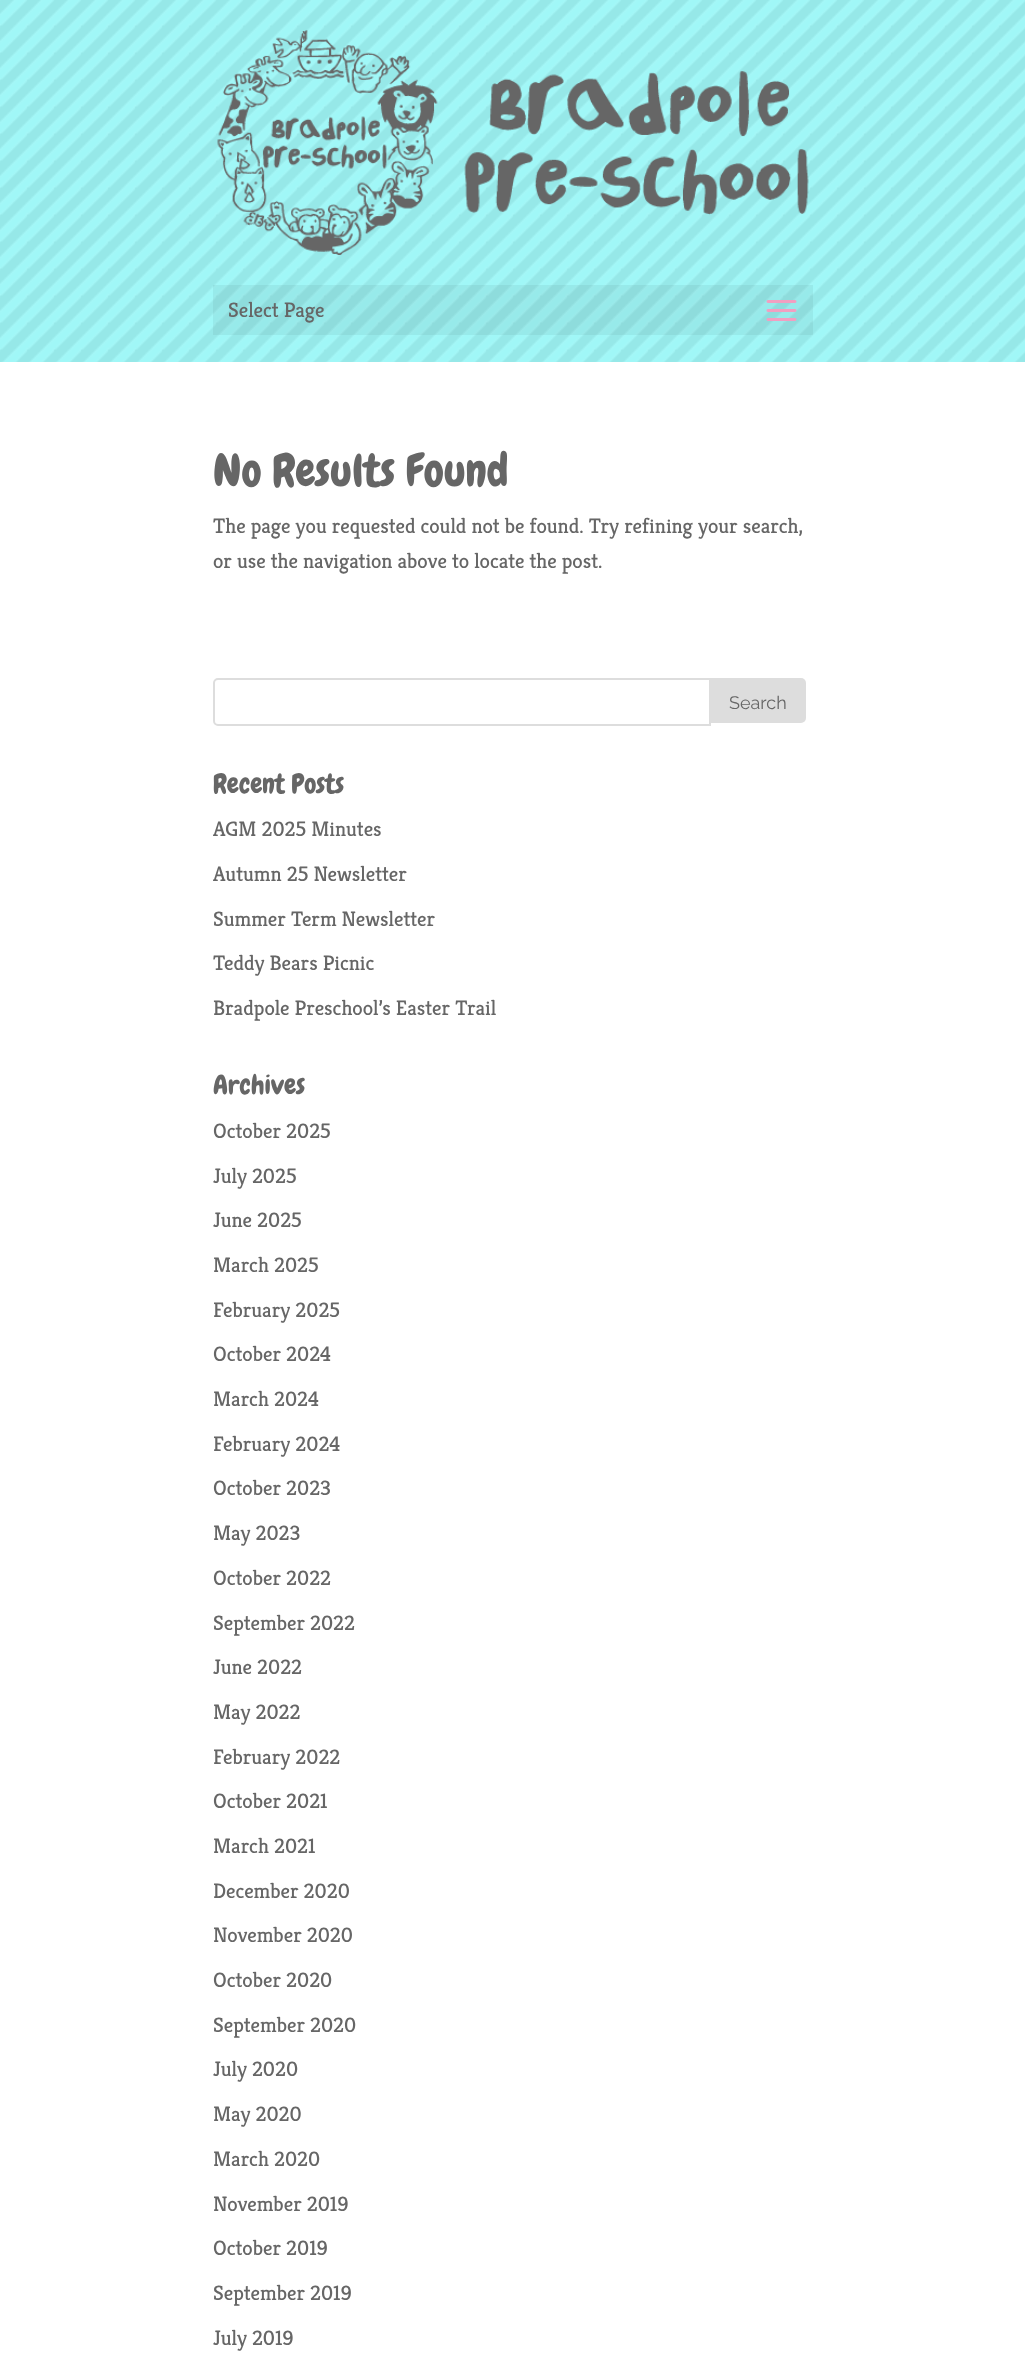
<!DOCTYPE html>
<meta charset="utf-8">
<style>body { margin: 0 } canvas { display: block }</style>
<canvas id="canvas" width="1025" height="2374"></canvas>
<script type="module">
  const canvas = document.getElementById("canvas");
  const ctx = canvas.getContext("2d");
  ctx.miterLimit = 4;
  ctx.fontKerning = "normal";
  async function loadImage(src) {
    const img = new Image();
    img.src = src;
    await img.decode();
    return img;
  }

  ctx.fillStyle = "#a0f7f7";
  ctx.fillRect(0, 0, 1025, 2374);
  ctx.drawImage(await loadImage("img1.png"), 0, 0, 1025, 362);
  ctx.drawImage(await loadImage("img2.png"), 217, 30, 592, 225);
  ctx.fillStyle = "rgba(0, 0, 0, 0.05)";
  ctx.fillRect(213, 285, 600, 50);
  ctx.font = "21px Kreon";
  ctx.fillStyle = "#666666";
  ctx.fillText("Select Page", 228, 317);
  ctx.drawImage(await loadImage("img3.png"), 766, 300, 31, 21);
  ctx.fillStyle = "#ffffff";
  ctx.fillRect(0, 362, 1025, 2012);
  ctx.font = "45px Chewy";
  ctx.fillStyle = "#666666";
  ctx.fillText("No Results Found", 213, 486);
  ctx.font = "21px Kreon";
  ctx.fillText("The page you requested could not be found. Try refining your search,", 213, 533);
  ctx.fillText("or use the navigation above to locate the post.", 213, 568);
  ctx.beginPath();
  ctx.roundRect(214, 679, 496, 46, [4, 0, 0, 4]);
  ctx.strokeStyle = "#dddddd";
  ctx.lineWidth = 2;
  ctx.stroke();
  ctx.fillStyle = "#dddddd";
  ctx.beginPath();
  ctx.roundRect(711, 678, 95, 45, [0, 5, 5, 0]);
  ctx.fill();
  ctx.font = "18px Raleway";
  ctx.fillStyle = "#666666";
  ctx.fillText("Search", 729, 709);
  ctx.font = "27px Chewy";
  ctx.fillText("Recent Posts", 213, 793);
  ctx.font = "21px Kreon";
  ctx.fillText("AGM 2025 Minutes", 213, 836);
  ctx.fillText("Autumn 25 Newsletter", 213, 881);
  ctx.fillText("Summer Term Newsletter", 213, 926);
  ctx.fillText("Teddy Bears Picnic", 213, 970);
  ctx.fillText("Bradpole Preschool’s Easter Trail", 213, 1015);
  ctx.font = "27px Chewy";
  ctx.fillText("Archives", 213, 1094);
  ctx.font = "21px Kreon";
  ctx.fillText("October 2025", 213, 1138);
  ctx.fillText("July 2025", 213, 1183);
  ctx.fillText("June 2025", 213, 1227);
  ctx.fillText("March 2025", 213, 1272);
  ctx.fillText("February 2025", 213, 1317);
  ctx.fillText("October 2024", 213, 1361);
  ctx.fillText("March 2024", 213, 1406);
  ctx.fillText("February 2024", 213, 1451);
  ctx.fillText("October 2023", 213, 1495);
  ctx.fillText("May 2023", 213, 1540);
  ctx.fillText("October 2022", 213, 1585);
  ctx.fillText("September 2022", 213, 1630);
  ctx.fillText("June 2022", 213, 1674);
  ctx.fillText("May 2022", 213, 1719);
  ctx.fillText("February 2022", 213, 1764);
  ctx.fillText("October 2021", 213, 1808);
  ctx.fillText("March 2021", 213, 1853);
  ctx.fillText("December 2020", 213, 1898);
  ctx.fillText("November 2020", 213, 1942);
  ctx.fillText("October 2020", 213, 1987);
  ctx.fillText("September 2020", 213, 2032);
  ctx.fillText("July 2020", 213, 2076);
  ctx.fillText("May 2020", 213, 2121);
  ctx.fillText("March 2020", 213, 2166);
  ctx.fillText("November 2019", 213, 2211);
  ctx.fillText("October 2019", 213, 2255);
  ctx.fillText("September 2019", 213, 2300);
  ctx.fillText("July 2019", 213, 2345);
</script>
